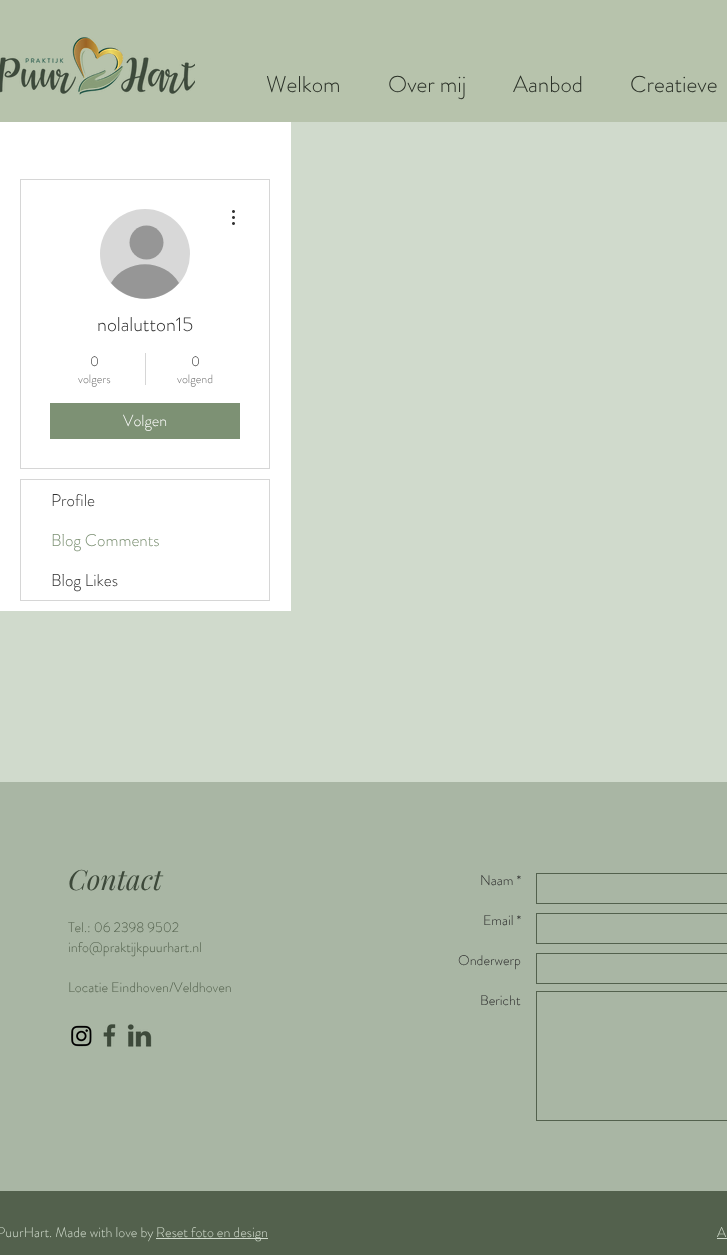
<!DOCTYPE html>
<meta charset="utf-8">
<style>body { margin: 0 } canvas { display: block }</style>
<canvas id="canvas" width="727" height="1255"></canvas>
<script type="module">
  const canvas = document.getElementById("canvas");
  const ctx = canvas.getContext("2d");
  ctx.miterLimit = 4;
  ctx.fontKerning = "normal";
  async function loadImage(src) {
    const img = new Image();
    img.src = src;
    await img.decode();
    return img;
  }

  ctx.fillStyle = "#d0dacc";
  ctx.fillRect(0, 0, 727, 1255);
  ctx.fillStyle = "#b7c3ac";
  ctx.fillRect(0, 0, 727, 122);
  ctx.drawImage(await loadImage("img1.png"), 0, 37, 195, 58);
  ctx.font = "300 23px 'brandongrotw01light'";
  ctx.fillStyle = "#2a3027";
  ctx.fillText("Welkom", 266, 92);
  ctx.fillText("Over mij", 388, 92);
  ctx.fillText("Aanbod", 513, 92);
  ctx.fillText("Creatieve", 630, 92);
  ctx.fillStyle = "#ffffff";
  ctx.fillRect(0, 122, 291, 489);
  ctx.strokeStyle = "#d6d6d6";
  ctx.strokeRect(20.5, 179.5, 249, 289);
  ctx.fillStyle = "#d8d8d8";
  ctx.beginPath();
  ctx.arc(145, 254, 45, 0, Math.PI * 2);
  ctx.fill();
  ctx.fillStyle = "#969696";
  ctx.beginPath();
  ctx.arc(146.5, 242.5, 17, 0, Math.PI * 2);
  ctx.fill();
  ctx.beginPath();
  ctx.moveTo(179, 283);
  ctx.bezierCurveTo(161, 304, 129, 304, 111, 283);
  ctx.bezierCurveTo(126, 258, 164, 258, 179, 283);
  ctx.closePath();
  ctx.fill();
  ctx.drawImage(await loadImage("img2.png"), 232, 210, 3, 15);
  ctx.font = "300 20px 'brandongrotw01light'";
  ctx.fillStyle = "#303030";
  ctx.fillText("nolalutton15", 97, 331);
  ctx.font = "300 14px 'brandongrotw01light'";
  ctx.fillText("0", 90, 366);
  ctx.font = "300 12px 'brandongrotw01light'";
  ctx.fillStyle = "#6e6e6e";
  ctx.fillText("volgers", 78, 383);
  ctx.fillStyle = "#d6d6d6";
  ctx.fillRect(145, 353, 1, 32);
  ctx.font = "300 14px 'brandongrotw01light'";
  ctx.fillStyle = "#303030";
  ctx.fillText("0", 191, 366);
  ctx.font = "300 12px 'brandongrotw01light'";
  ctx.fillStyle = "#6e6e6e";
  ctx.fillText("volgend", 177, 383);
  ctx.fillStyle = "#7d9174";
  ctx.fillRect(50, 403, 190, 36);
  ctx.font = "300 16px 'brandongrotw01light'";
  ctx.fillStyle = "#ffffff";
  ctx.fillText("Volgen", 123, 426);
  ctx.strokeRect(20.5, 479.5, 249, 121);
  ctx.font = "300 17px 'brandongrotw01light'";
  ctx.fillStyle = "#303030";
  ctx.fillText("Profile", 51, 506);
  ctx.fillStyle = "#7d9174";
  ctx.fillText("Blog Comments", 51, 546);
  ctx.fillStyle = "#303030";
  ctx.fillText("Blog Likes", 51, 586);
  ctx.fillStyle = "#a9b6a4";
  ctx.fillRect(0, 782, 727, 409);
  ctx.font = "italic 28px Playfair Display";
  ctx.fillStyle = "#3d493a";
  ctx.fillText("Contact", 68, 890);
  ctx.font = "300 14px 'brandongrotw01light'";
  ctx.fillStyle = "#2a2a2a";
  ctx.fillText("Naam *", 480, 885);
  ctx.strokeStyle = "#53614d";
  ctx.strokeRect(536.5, 873.5, 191, 30);
  ctx.fillText("Email *", 483, 925);
  ctx.strokeRect(536.5, 913.5, 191, 30);
  ctx.fillText("Onderwerp", 458, 965);
  ctx.strokeRect(536.5, 953.5, 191, 30);
  ctx.fillText("Bericht", 480, 1005);
  ctx.strokeRect(536.5, 991.5, 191, 129);
  ctx.fillStyle = "#53614d";
  ctx.fillText("Tel.: 06 2398 9502", 68, 932);
  ctx.fillText("info@praktijkpuurhart.nl", 68, 952);
  ctx.fillText("Locatie Eindhoven/Veldhoven", 68, 992);
  ctx.drawImage(await loadImage("img3.png"), 71, 1025, 21, 22);
  ctx.drawImage(await loadImage("img4.png"), 103, 1024, 13, 23);
  ctx.drawImage(await loadImage("img5.png"), 127, 1024, 25, 23);
  ctx.fillRect(0, 1191, 727, 64);
  ctx.fillStyle = "#d0dacc";
  ctx.fillText("PuurHart. Made with love by", -3, 1237);
  ctx.fillRect(156, 1238, 112, 1);
  ctx.fillText("Reset foto en design", 156, 1237);
  ctx.fillText("A", 717, 1237);
  ctx.fillRect(717, 1238, 10, 1);
</script>
